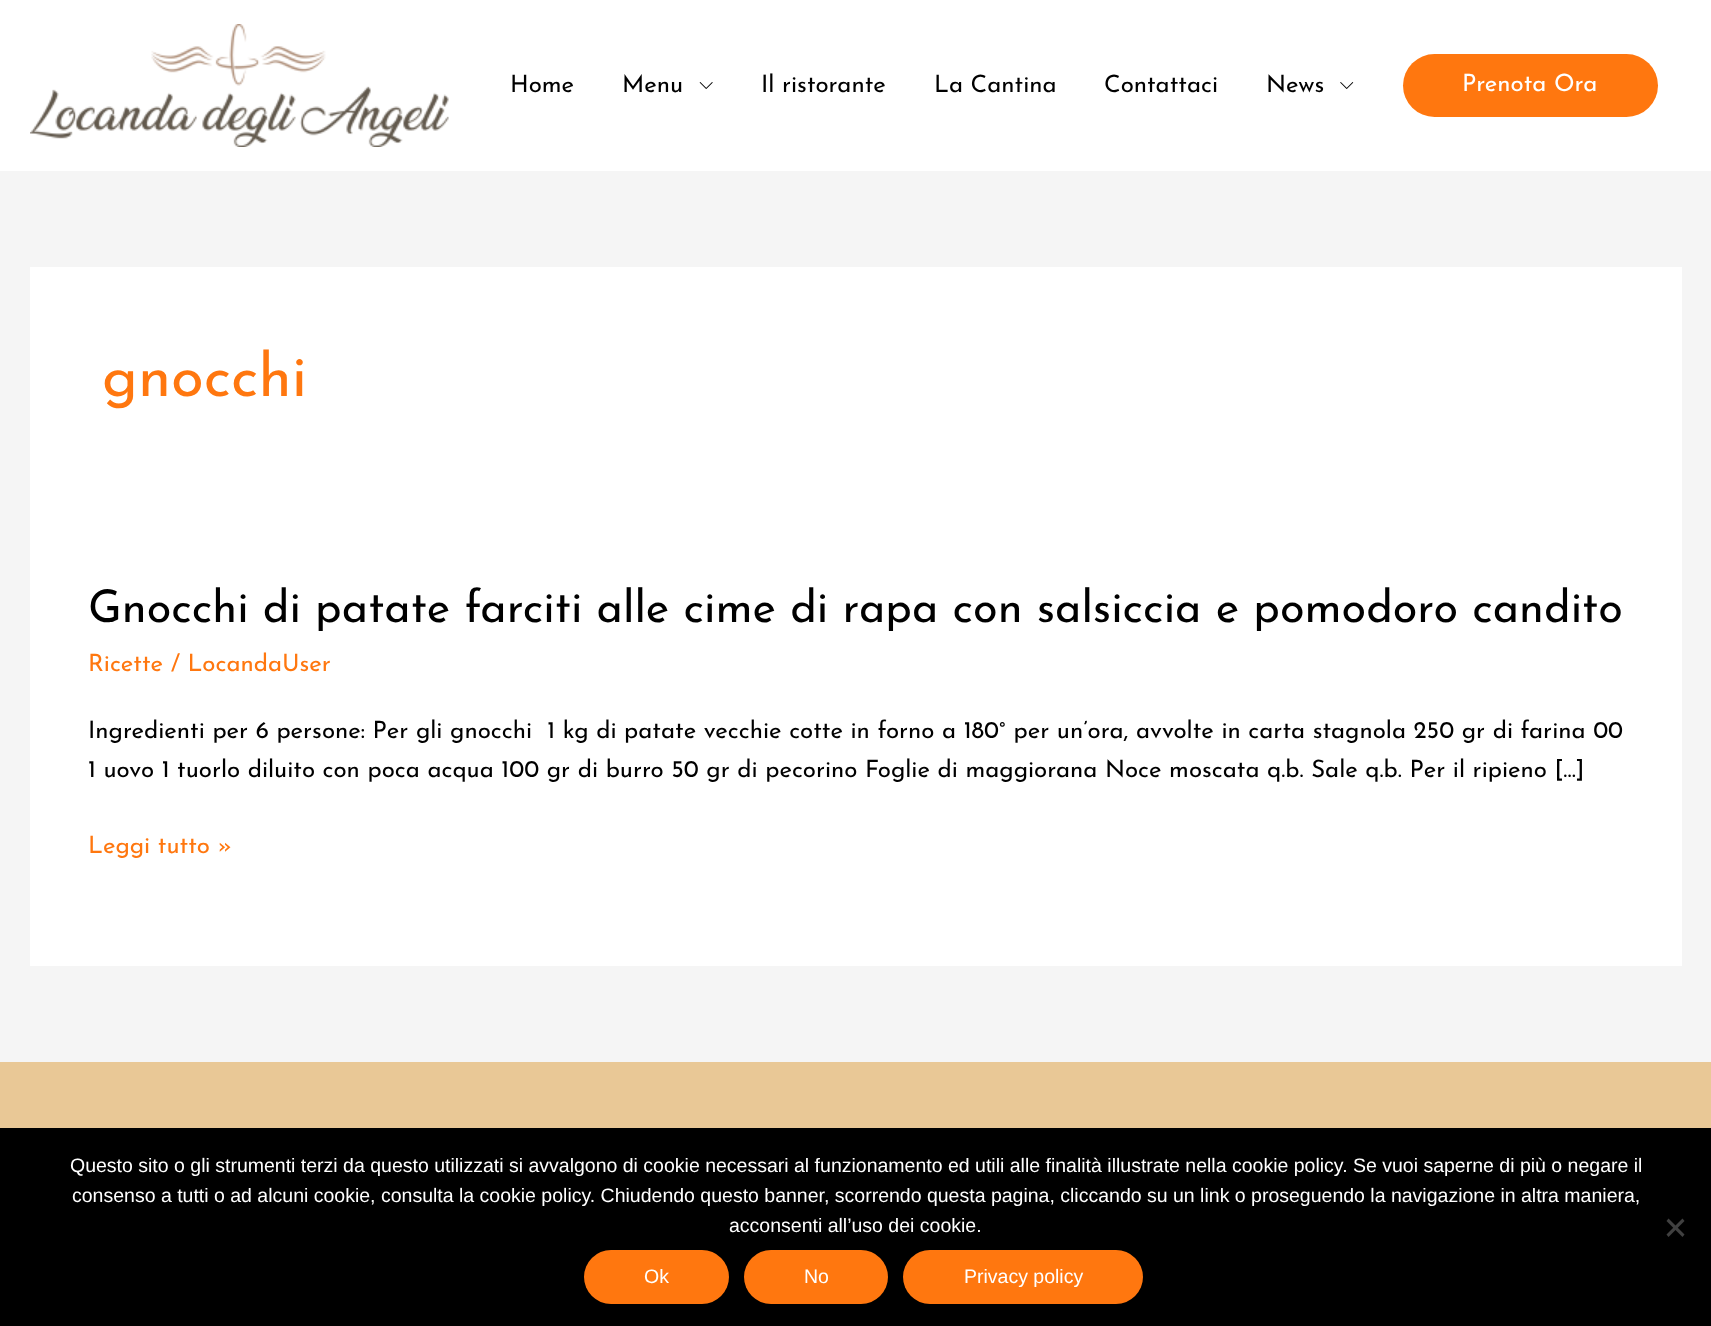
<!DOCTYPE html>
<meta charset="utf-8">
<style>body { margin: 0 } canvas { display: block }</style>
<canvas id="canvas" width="1711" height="1326"></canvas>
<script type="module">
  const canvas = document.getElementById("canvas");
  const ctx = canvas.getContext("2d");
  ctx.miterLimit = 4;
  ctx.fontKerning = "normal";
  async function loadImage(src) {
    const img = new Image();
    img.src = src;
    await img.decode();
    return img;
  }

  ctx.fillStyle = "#f5f5f5";
  ctx.fillRect(0, 0, 1711, 1326);
  ctx.fillStyle = "#ffffff";
  ctx.fillRect(0, 0, 1711, 171);
  ctx.drawImage(await loadImage("img1.png"), 30, 24, 419, 123);
  ctx.font = "100 24px Josefin Sans";
  ctx.fillStyle = "#000000";
  ctx.fillText("Home", 510, 92);
  ctx.fillText("Menu", 622, 92);
  ctx.drawImage(await loadImage("img2.png"), 699, 82, 14, 7);
  ctx.fillText("Il ristorante", 761, 92);
  ctx.fillText("La Cantina", 934, 92);
  ctx.fillText("Contattaci", 1104, 92);
  ctx.fillText("News", 1266, 92);
  ctx.drawImage(await loadImage("img3.png"), 1340, 82, 14, 7);
  ctx.fillStyle = "#ff770f";
  ctx.beginPath();
  ctx.roundRect(1403, 54, 255, 63, 31.5);
  ctx.fill();
  ctx.fillStyle = "#ffffff";
  ctx.fillText("Prenota Ora", 1462, 91);
  ctx.fillRect(30, 267, 1652, 699);
  ctx.font = "100 60px Josefin Sans";
  ctx.fillStyle = "#ff770f";
  ctx.fillText("gnocchi", 102, 396);
  ctx.font = "100 45px Josefin Sans";
  ctx.fillStyle = "#000000";
  ctx.fillText("Gnocchi di patate farciti alle cime di rapa con salsiccia e pomodoro candito", 88, 622);
  ctx.font = "100 24px Josefin Sans";
  ctx.fillStyle = "#ff770f";
  ctx.fillText("Ricette / LocandaUser", 88, 671);
  ctx.fillStyle = "#000000";
  ctx.fillText("Ingredienti per 6 persone: Per gli gnocchi  1 kg di patate vecchie cotte in forno a 180° per un’ora, avvolte in carta stagnola 250 gr di farina 00", 88, 738);
  ctx.fillText("1 uovo 1 tuorlo diluito con poca acqua 100 gr di burro 50 gr di pecorino Foglie di maggiorana Noce moscata q.b. Sale q.b. Per il ripieno […]", 88, 777);
  ctx.fillStyle = "#ff770f";
  ctx.fillText("Leggi tutto »", 88, 853);
  ctx.fillStyle = "#e9c896";
  ctx.fillRect(0, 1062, 1711, 66);
  ctx.fillStyle = "#000000";
  ctx.fillRect(0, 1128, 1711, 198);
  ctx.font = "19.5px Liberation Sans";
  ctx.fillStyle = "#ffffff";
  ctx.fillText("Questo sito o gli strumenti terzi da questo utilizzati si avvalgono di cookie necessari al funzionamento ed utili alle finalità illustrate nella cookie policy. Se vuoi saperne di più o negare il", 70, 1172);
  ctx.fillText("consenso a tutti o ad alcuni cookie, consulta la cookie policy. Chiudendo questo banner, scorrendo questa pagina, cliccando su un link o proseguendo la navigazione in altra maniera,", 72, 1202);
  ctx.fillText("acconsenti all’uso dei cookie.", 729, 1232);
  ctx.fillStyle = "#404040";
  ctx.beginPath();
  ctx.moveTo(1682.5, 1218.5);
  ctx.lineTo(1684.5, 1221);
  ctx.lineTo(1668.5, 1237);
  ctx.lineTo(1666.5, 1234.5);
  ctx.closePath();
  ctx.fill();
  ctx.beginPath();
  ctx.moveTo(1666.5, 1221);
  ctx.lineTo(1668.5, 1218.5);
  ctx.lineTo(1684.5, 1234.5);
  ctx.lineTo(1682.5, 1237);
  ctx.closePath();
  ctx.fill();
  ctx.fillStyle = "#ff770f";
  ctx.beginPath();
  ctx.roundRect(584, 1250, 145, 54, 27);
  ctx.fill();
  ctx.fillStyle = "#ffffff";
  ctx.fillText("Ok", 644, 1283);
  ctx.fillStyle = "#ff770f";
  ctx.beginPath();
  ctx.roundRect(744, 1250, 144, 54, 27);
  ctx.fill();
  ctx.fillStyle = "#ffffff";
  ctx.fillText("No", 804, 1283);
  ctx.fillStyle = "#ff770f";
  ctx.beginPath();
  ctx.roundRect(903, 1250, 240, 54, 27);
  ctx.fill();
  ctx.fillStyle = "#ffffff";
  ctx.fillText("Privacy policy", 964, 1283);
</script>
